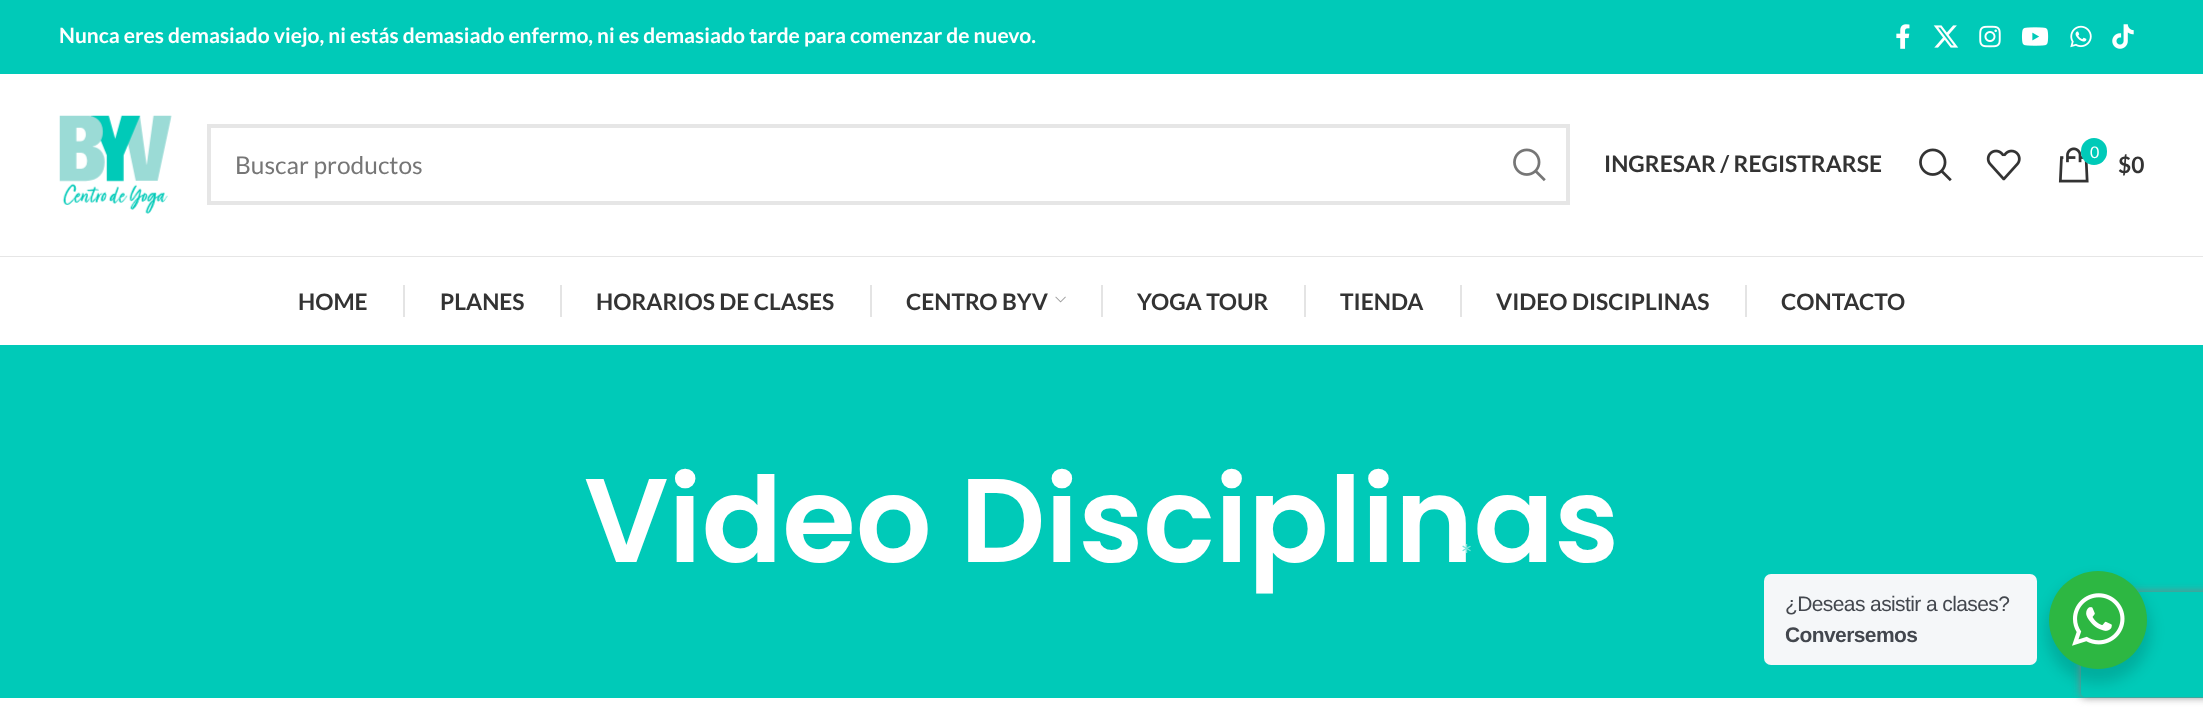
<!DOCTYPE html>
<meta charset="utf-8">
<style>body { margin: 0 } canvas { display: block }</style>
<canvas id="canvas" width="2203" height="720"></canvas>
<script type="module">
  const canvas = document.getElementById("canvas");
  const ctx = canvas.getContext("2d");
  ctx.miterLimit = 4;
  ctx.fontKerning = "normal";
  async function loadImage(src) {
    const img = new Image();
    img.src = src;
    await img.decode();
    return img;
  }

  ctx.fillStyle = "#ffffff";
  ctx.fillRect(0, 0, 2203, 720);
  ctx.fillStyle = "#00cab8";
  ctx.fillRect(0, 0, 2203, 74);
  ctx.font = "bold 21px Lato";
  ctx.fillStyle = "#ffffff";
  ctx.fillText("Nunca eres demasiado viejo, ni estás demasiado enfermo, ni es demasiado tarde para comenzar de nuevo.", 59, 43);
  ctx.drawImage(await loadImage("img1.png"), 1896, 24, 14, 25);
  ctx.drawImage(await loadImage("img2.png"), 1933, 25, 26, 23);
  ctx.drawImage(await loadImage("img3.png"), 1979, 25, 22, 23);
  ctx.drawImage(await loadImage("img4.png"), 2021, 27, 28, 19);
  ctx.drawImage(await loadImage("img5.png"), 2070, 25, 22, 23);
  ctx.drawImage(await loadImage("img6.png"), 2112, 24, 22, 25);
  ctx.fillStyle = "#e6e6e6";
  ctx.fillRect(0, 256, 2203, 1);
  ctx.drawImage(await loadImage("img7.png"), 59, 115, 113, 99);
  ctx.strokeStyle = "#e6e6e6";
  ctx.lineWidth = 4;
  ctx.strokeRect(209, 126, 1359, 77);
  ctx.font = "24.5px Lato";
  ctx.fillStyle = "#767676";
  ctx.fillText("Buscar productos", 235, 174);
  ctx.drawImage(await loadImage("img8.png"), 1513, 148, 33, 34);
  ctx.font = "bold 22.75px Lato";
  ctx.fillStyle = "#333333";
  ctx.fillText("INGRESAR / REGISTRARSE", 1604, 172);
  ctx.fillStyle = "#00cab8";
  ctx.fillRect(0, 345, 2203, 353);
  ctx.font = "600 119px Poppins";
  ctx.fillStyle = "#ffffff";
  ctx.fillText("Video Disciplinas", 584, 562);
  ctx.font = "28px Lato";
  ctx.fillStyle = "#7be4da";
  ctx.fillText("*", 1461, 565);
  ctx.drawImage(await loadImage("img9.png"), 1919, 148, 33, 34);
  ctx.drawImage(await loadImage("img10.png"), 1986, 149, 35, 32);
  ctx.drawImage(await loadImage("img11.png"), 2058, 147, 31, 36);
  ctx.fillStyle = "#00cab8";
  ctx.beginPath();
  ctx.roundRect(2081, 138, 26, 27, 13);
  ctx.fill();
  ctx.font = "16px Lato";
  ctx.fillStyle = "#ffffff";
  ctx.fillText("0", 2090, 158);
  ctx.font = "bold 22.75px Lato";
  ctx.fillStyle = "#333333";
  ctx.fillText("$0", 2118, 173);
  ctx.fillText("HOME", 298, 310);
  ctx.fillStyle = "#e4e4e4";
  ctx.fillRect(403, 285, 2, 32);
  ctx.fillStyle = "#333333";
  ctx.fillText("PLANES", 440, 310);
  ctx.fillStyle = "#e4e4e4";
  ctx.fillRect(560, 285, 2, 32);
  ctx.fillStyle = "#333333";
  ctx.fillText("HORARIOS DE CLASES", 596, 310);
  ctx.fillStyle = "#e4e4e4";
  ctx.fillRect(870, 285, 2, 32);
  ctx.fillStyle = "#333333";
  ctx.fillText("CENTRO BYV", 906, 310);
  ctx.drawImage(await loadImage("img12.png"), 1055, 296, 11, 7);
  ctx.fillStyle = "#e4e4e4";
  ctx.fillRect(1101, 285, 2, 32);
  ctx.fillStyle = "#333333";
  ctx.fillText("YOGA TOUR", 1137, 310);
  ctx.fillStyle = "#e4e4e4";
  ctx.fillRect(1304, 285, 2, 32);
  ctx.fillStyle = "#333333";
  ctx.fillText("TIENDA", 1340, 310);
  ctx.fillStyle = "#e4e4e4";
  ctx.fillRect(1460, 285, 2, 32);
  ctx.fillStyle = "#333333";
  ctx.fillText("VIDEO DISCIPLINAS", 1496, 310);
  ctx.fillStyle = "#e4e4e4";
  ctx.fillRect(1745, 285, 2, 32);
  ctx.fillStyle = "#333333";
  ctx.fillText("CONTACTO", 1781, 310);
  ctx.fillStyle = "rgba(0, 0, 0, 0.14)";
  ctx.filter = "blur(7px)";
  ctx.beginPath();
  ctx.roundRect(2046, 578, 105, 105, 52.5);
  ctx.fill();
  ctx.filter = "none";
  ctx.fillStyle = "#f5f7f9";
  ctx.beginPath();
  ctx.roundRect(1764, 574, 273, 91, 7);
  ctx.fill();
  ctx.letterSpacing = "-0.6px";
  ctx.font = "21px Liberation Sans";
  ctx.fillStyle = "#43474e";
  ctx.fillText("¿Deseas asistir a clases?", 1785, 611);
  ctx.font = "bold 21px Liberation Sans";
  ctx.fillText("Conversemos", 1785, 642);
  ctx.save();
  ctx.beginPath();
  ctx.moveTo(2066, 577);
  ctx.lineTo(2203, 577);
  ctx.lineTo(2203, 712);
  ctx.lineTo(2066, 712);
  ctx.closePath();
  ctx.moveTo(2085, 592);
  ctx.lineTo(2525, 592);
  ctx.bezierCurveTo(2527, 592, 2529, 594, 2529, 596);
  ctx.lineTo(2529, 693);
  ctx.bezierCurveTo(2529, 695, 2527, 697, 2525, 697);
  ctx.lineTo(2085, 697);
  ctx.bezierCurveTo(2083, 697, 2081, 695, 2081, 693);
  ctx.lineTo(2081, 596);
  ctx.bezierCurveTo(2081, 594, 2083, 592, 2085, 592);
  ctx.closePath();
  ctx.clip("evenodd");
  ctx.fillStyle = "#808080";
  ctx.filter = "blur(4.5px)";
  ctx.beginPath();
  ctx.roundRect(2081, 592, 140, 105, 4);
  ctx.fill();
  ctx.filter = "none";
  ctx.restore();
  ctx.fillStyle = "#2db742";
  ctx.beginPath();
  ctx.arc(2098, 620, 49, 0, Math.PI * 2);
  ctx.fill();
  ctx.drawImage(await loadImage("img13.png"), 2072, 593, 53, 53);
</script>
